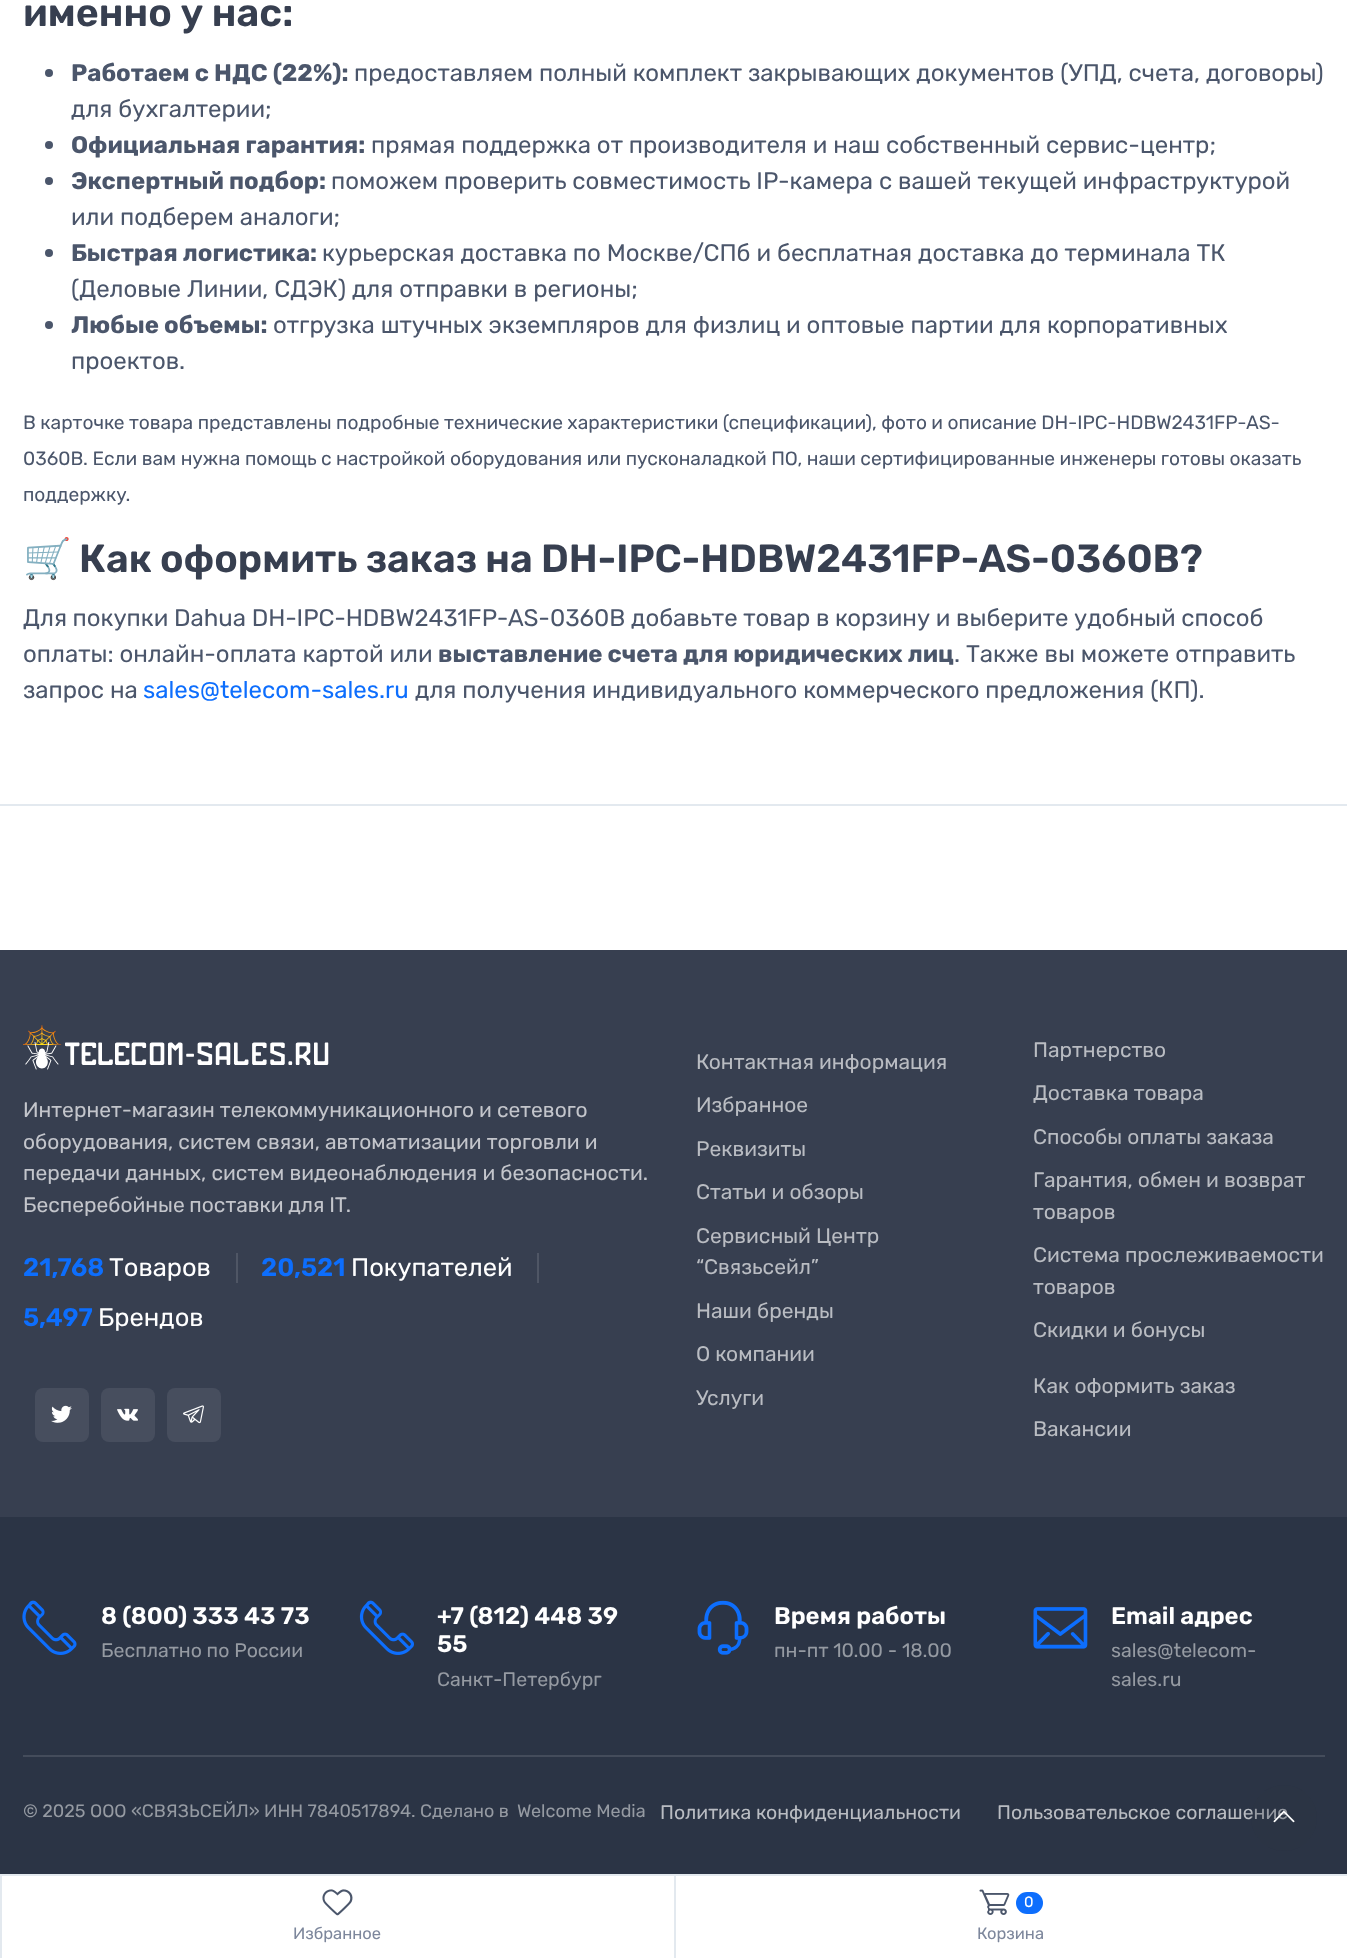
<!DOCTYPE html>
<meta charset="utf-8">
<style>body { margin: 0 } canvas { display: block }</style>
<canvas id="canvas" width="1347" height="1958"></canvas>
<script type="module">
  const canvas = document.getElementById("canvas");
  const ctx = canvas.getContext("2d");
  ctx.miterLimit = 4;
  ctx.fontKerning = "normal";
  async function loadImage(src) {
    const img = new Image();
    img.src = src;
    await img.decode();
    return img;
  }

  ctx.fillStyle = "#ffffff";
  ctx.fillRect(0, 0, 1347, 1958);
  ctx.font = "600 39.25px Rubik";
  ctx.fillStyle = "#373f50";
  ctx.fillText("именно у нас:", 23, 26);
  ctx.fillStyle = "#4b566b";
  ctx.beginPath();
  ctx.arc(49, 73, 4, 0, Math.PI * 2);
  ctx.fill();
  ctx.font = "bold 24px Rubik";
  ctx.fillText("Работаем с НДС (22%):", 71, 81);
  ctx.font = "24px Rubik";
  ctx.fillText("предоставляем полный комплект закрывающих документов (УПД, счета, договоры)", 354, 81);
  ctx.fillText("для бухгалтерии;", 71, 117);
  ctx.beginPath();
  ctx.arc(49, 145, 4, 0, Math.PI * 2);
  ctx.fill();
  ctx.font = "bold 24px Rubik";
  ctx.fillText("Официальная гарантия:", 71, 153);
  ctx.font = "24px Rubik";
  ctx.fillText("прямая поддержка от производителя и наш собственный сервис-центр;", 371, 153);
  ctx.beginPath();
  ctx.arc(49, 181, 4, 0, Math.PI * 2);
  ctx.fill();
  ctx.font = "bold 24px Rubik";
  ctx.fillText("Экспертный подбор:", 71, 189);
  ctx.font = "24px Rubik";
  ctx.fillText("поможем проверить совместимость IP-камера с вашей текущей инфраструктурой", 331, 189);
  ctx.fillText("или подберем аналоги;", 71, 225);
  ctx.beginPath();
  ctx.arc(49, 253, 4, 0, Math.PI * 2);
  ctx.fill();
  ctx.font = "bold 24px Rubik";
  ctx.fillText("Быстрая логистика:", 71, 261);
  ctx.font = "24px Rubik";
  ctx.fillText("курьерская доставка по Москве/СПб и бесплатная доставка до терминала ТК", 322, 261);
  ctx.fillText("(Деловые Линии, СДЭК) для отправки в регионы;", 71, 297);
  ctx.beginPath();
  ctx.arc(49, 325, 4, 0, Math.PI * 2);
  ctx.fill();
  ctx.font = "bold 24px Rubik";
  ctx.fillText("Любые объемы:", 71, 333);
  ctx.font = "24px Rubik";
  ctx.fillText("отгрузка штучных экземпляров для физлиц и оптовые партии для корпоративных", 273, 333);
  ctx.fillText("проектов.", 71, 369);
  ctx.wordSpacing = "-0.25px";
  ctx.font = "19.2px Rubik";
  ctx.fillText("В карточке товара представлены подробные технические характеристики (спецификации), фото и описание DH-IPC-HDBW2431FP-AS-", 23, 429);
  ctx.fillText("0360B. Если вам нужна помощь с настройкой оборудования или пусконаладкой ПО, наши сертифицированные инженеры готовы оказать", 23, 465);
  ctx.wordSpacing = "0px";
  ctx.fillText("поддержку.", 23, 501);
  ctx.font = "bold 39.25px Noto Color Emoji";
  ctx.fillStyle = "#373f50";
  ctx.fillText("🛒", 23, 572);
  ctx.wordSpacing = "-0.5px";
  ctx.font = "600 39.25px Rubik";
  ctx.fillText("Как оформить заказ на DH-IPC-HDBW2431FP-AS-0360B?", 79, 572);
  ctx.wordSpacing = "-0.25px";
  ctx.font = "24px Rubik";
  ctx.fillStyle = "#4b566b";
  ctx.fillText("Для покупки Dahua DH-IPC-HDBW2431FP-AS-0360B добавьте товар в корзину и выберите удобный способ", 23, 626);
  ctx.wordSpacing = "0px";
  ctx.fillText("оплаты: онлайн-оплата картой или", 23, 662);
  ctx.font = "bold 24px Rubik";
  ctx.fillText("выставление счета для юридических лиц", 438, 662);
  ctx.font = "24px Rubik";
  ctx.fillText(". Также вы можете отправить", 954, 662);
  ctx.fillText("запрос на", 23, 698);
  ctx.fillStyle = "#0d6efd";
  ctx.fillText("sales@telecom-sales.ru", 143, 698);
  ctx.fillStyle = "#4b566b";
  ctx.fillText("для получения индивидуального коммерческого предложения (КП).", 415, 698);
  ctx.fillStyle = "#e3e9ef";
  ctx.fillRect(0, 804, 1347, 2);
  ctx.fillStyle = "#373f50";
  ctx.fillRect(0, 950, 1347, 567);
  ctx.drawImage(await loadImage("img1.png"), 23, 1025, 306, 45);
  ctx.font = "21px Rubik";
  ctx.fillStyle = "#c3c5cb";
  ctx.fillText("Интернет-магазин телекоммуникационного и сетевого", 23, 1117);
  ctx.fillText("оборудования, систем связи, автоматизации торговли и", 23, 1149);
  ctx.fillText("передачи данных, систем видеонаблюдения и безопасности.", 23, 1180);
  ctx.wordSpacing = "-0.5px";
  ctx.fillText("Бесперебойные поставки для IT.", 23, 1212);
  ctx.fillStyle = "#4f5665";
  ctx.fillRect(236, 1253, 2, 30);
  ctx.wordSpacing = "0px";
  ctx.font = "600 25.5px Rubik";
  ctx.fillStyle = "#0d6efd";
  ctx.fillText("21,768", 23, 1276);
  ctx.font = "25.5px Rubik";
  ctx.fillStyle = "#ffffff";
  ctx.fillText("Товаров", 109, 1276);
  ctx.fillStyle = "#4f5665";
  ctx.fillRect(537, 1253, 2, 30);
  ctx.font = "600 25.5px Rubik";
  ctx.fillStyle = "#0d6efd";
  ctx.fillText("20,521", 261, 1276);
  ctx.font = "25.5px Rubik";
  ctx.fillStyle = "#ffffff";
  ctx.fillText("Покупателей", 351, 1276);
  ctx.font = "600 25.5px Rubik";
  ctx.fillStyle = "#0d6efd";
  ctx.fillText("5,497", 23, 1326);
  ctx.font = "25.5px Rubik";
  ctx.fillStyle = "#ffffff";
  ctx.fillText("Брендов", 98, 1326);
  ctx.fillStyle = "#474e5e";
  ctx.beginPath();
  ctx.roundRect(35, 1388, 54, 54, 8);
  ctx.fill();
  ctx.drawImage(await loadImage("img2.png"), 51, 1405, 21, 18);
  ctx.beginPath();
  ctx.roundRect(101, 1388, 54, 54, 8);
  ctx.fill();
  ctx.drawImage(await loadImage("img3.png"), 117, 1408, 21, 13);
  ctx.beginPath();
  ctx.roundRect(167, 1388, 54, 54, 8);
  ctx.fill();
  ctx.drawImage(await loadImage("img4.png"), 183, 1405, 21, 19);
  ctx.font = "21px Rubik";
  ctx.fillStyle = "#b9bcc2";
  ctx.fillText("Контактная информация", 696, 1069);
  ctx.fillText("Избранное", 696, 1112);
  ctx.fillText("Реквизиты", 696, 1156);
  ctx.fillText("Статьи и обзоры", 696, 1199);
  ctx.fillText("Сервисный Центр", 696, 1243);
  ctx.fillText("“Связьсейл”", 696, 1274);
  ctx.fillText("Наши бренды", 696, 1318);
  ctx.fillText("О компании", 696, 1361);
  ctx.fillText("Услуги", 696, 1405);
  ctx.fillText("Партнерство", 1033, 1057);
  ctx.fillText("Доставка товара", 1033, 1100);
  ctx.fillText("Способы оплаты заказа", 1033, 1144);
  ctx.fillText("Гарантия, обмен и возврат", 1033, 1187);
  ctx.fillText("товаров", 1033, 1219);
  ctx.fillText("Система прослеживаемости", 1033, 1262);
  ctx.fillText("товаров", 1033, 1294);
  ctx.fillText("Скидки и бонусы", 1033, 1337);
  ctx.fillText("Как оформить заказ", 1033, 1393);
  ctx.fillText("Вакансии", 1033, 1436);
  ctx.fillStyle = "#2b3445";
  ctx.fillRect(0, 1517, 1347, 357);
  ctx.drawImage(await loadImage("img5.png"), 22, 1600, 55, 55);
  ctx.font = "600 24px Rubik";
  ctx.fillStyle = "#ffffff";
  ctx.fillText("8 (800) 333 43 73", 101, 1624);
  ctx.font = "19.5px Rubik";
  ctx.fillStyle = "#959aa2";
  ctx.fillText("Бесплатно по России", 101, 1657);
  ctx.drawImage(await loadImage("img6.png"), 359, 1600, 55, 55);
  ctx.font = "600 24px Rubik";
  ctx.fillStyle = "#ffffff";
  ctx.fillText("+7 (812) 448 39", 437, 1624);
  ctx.fillText("55", 437, 1652);
  ctx.font = "19.5px Rubik";
  ctx.fillStyle = "#959aa2";
  ctx.fillText("Санкт-Петербург", 437, 1686);
  ctx.drawImage(await loadImage("img7.png"), 697, 1600, 52, 55);
  ctx.font = "600 24px Rubik";
  ctx.fillStyle = "#ffffff";
  ctx.fillText("Время работы", 774, 1624);
  ctx.font = "19.5px Rubik";
  ctx.fillStyle = "#959aa2";
  ctx.fillText("пн-пт 10.00 - 18.00", 774, 1657);
  ctx.drawImage(await loadImage("img8.png"), 1033, 1607, 55, 42);
  ctx.font = "600 24px Rubik";
  ctx.fillStyle = "#ffffff";
  ctx.fillText("Email адрес", 1111, 1624);
  ctx.font = "19.5px Rubik";
  ctx.fillStyle = "#959aa2";
  ctx.fillText("sales@telecom-", 1111, 1657);
  ctx.fillText("sales.ru", 1111, 1686);
  ctx.fillStyle = "#444c5b";
  ctx.fillRect(23, 1755, 1302, 2);
  ctx.font = "18px Rubik";
  ctx.fillStyle = "#959aa2";
  ctx.fillText("© 2025 ООО «СВЯЗЬСЕЙЛ» ИНН 7840517894. Сделано в", 23, 1817);
  ctx.fillText("Welcome Media", 517, 1817);
  ctx.font = "19.5px Rubik";
  ctx.fillStyle = "#b9bcc2";
  ctx.fillText("Политика конфиденциальности", 660, 1819);
  ctx.fillText("Пользовательское соглашение", 997, 1819);
  ctx.fillStyle = "rgba(43, 52, 69, 0.25)";
  ctx.beginPath();
  ctx.arc(1284, 1818, 33, 0, Math.PI * 2);
  ctx.fill();
  ctx.drawImage(await loadImage("img9.png"), 1273, 1810, 22, 13);
  ctx.fillStyle = "#e3e9ef";
  ctx.fillRect(0, 1874, 1347, 2);
  ctx.fillRect(0, 1875, 2, 83);
  ctx.drawImage(await loadImage("img10.png"), 322, 1889, 31, 27);
  ctx.font = "16.5px Rubik";
  ctx.fillStyle = "#7d879c";
  ctx.fillText("Избранное", 293, 1939);
  ctx.fillStyle = "#e3e9ef";
  ctx.fillRect(674, 1875, 2, 83);
  ctx.drawImage(await loadImage("img11.png"), 979, 1889, 31, 26);
  ctx.fillStyle = "#0d6efd";
  ctx.beginPath();
  ctx.roundRect(1016, 1892, 27, 22, 11);
  ctx.fill();
  ctx.font = "15px Rubik";
  ctx.fillStyle = "#ffffff";
  ctx.fillText("0", 1024, 1907);
  ctx.font = "16.5px Rubik";
  ctx.fillStyle = "#7d879c";
  ctx.fillText("Корзина", 977, 1939);
</script>
